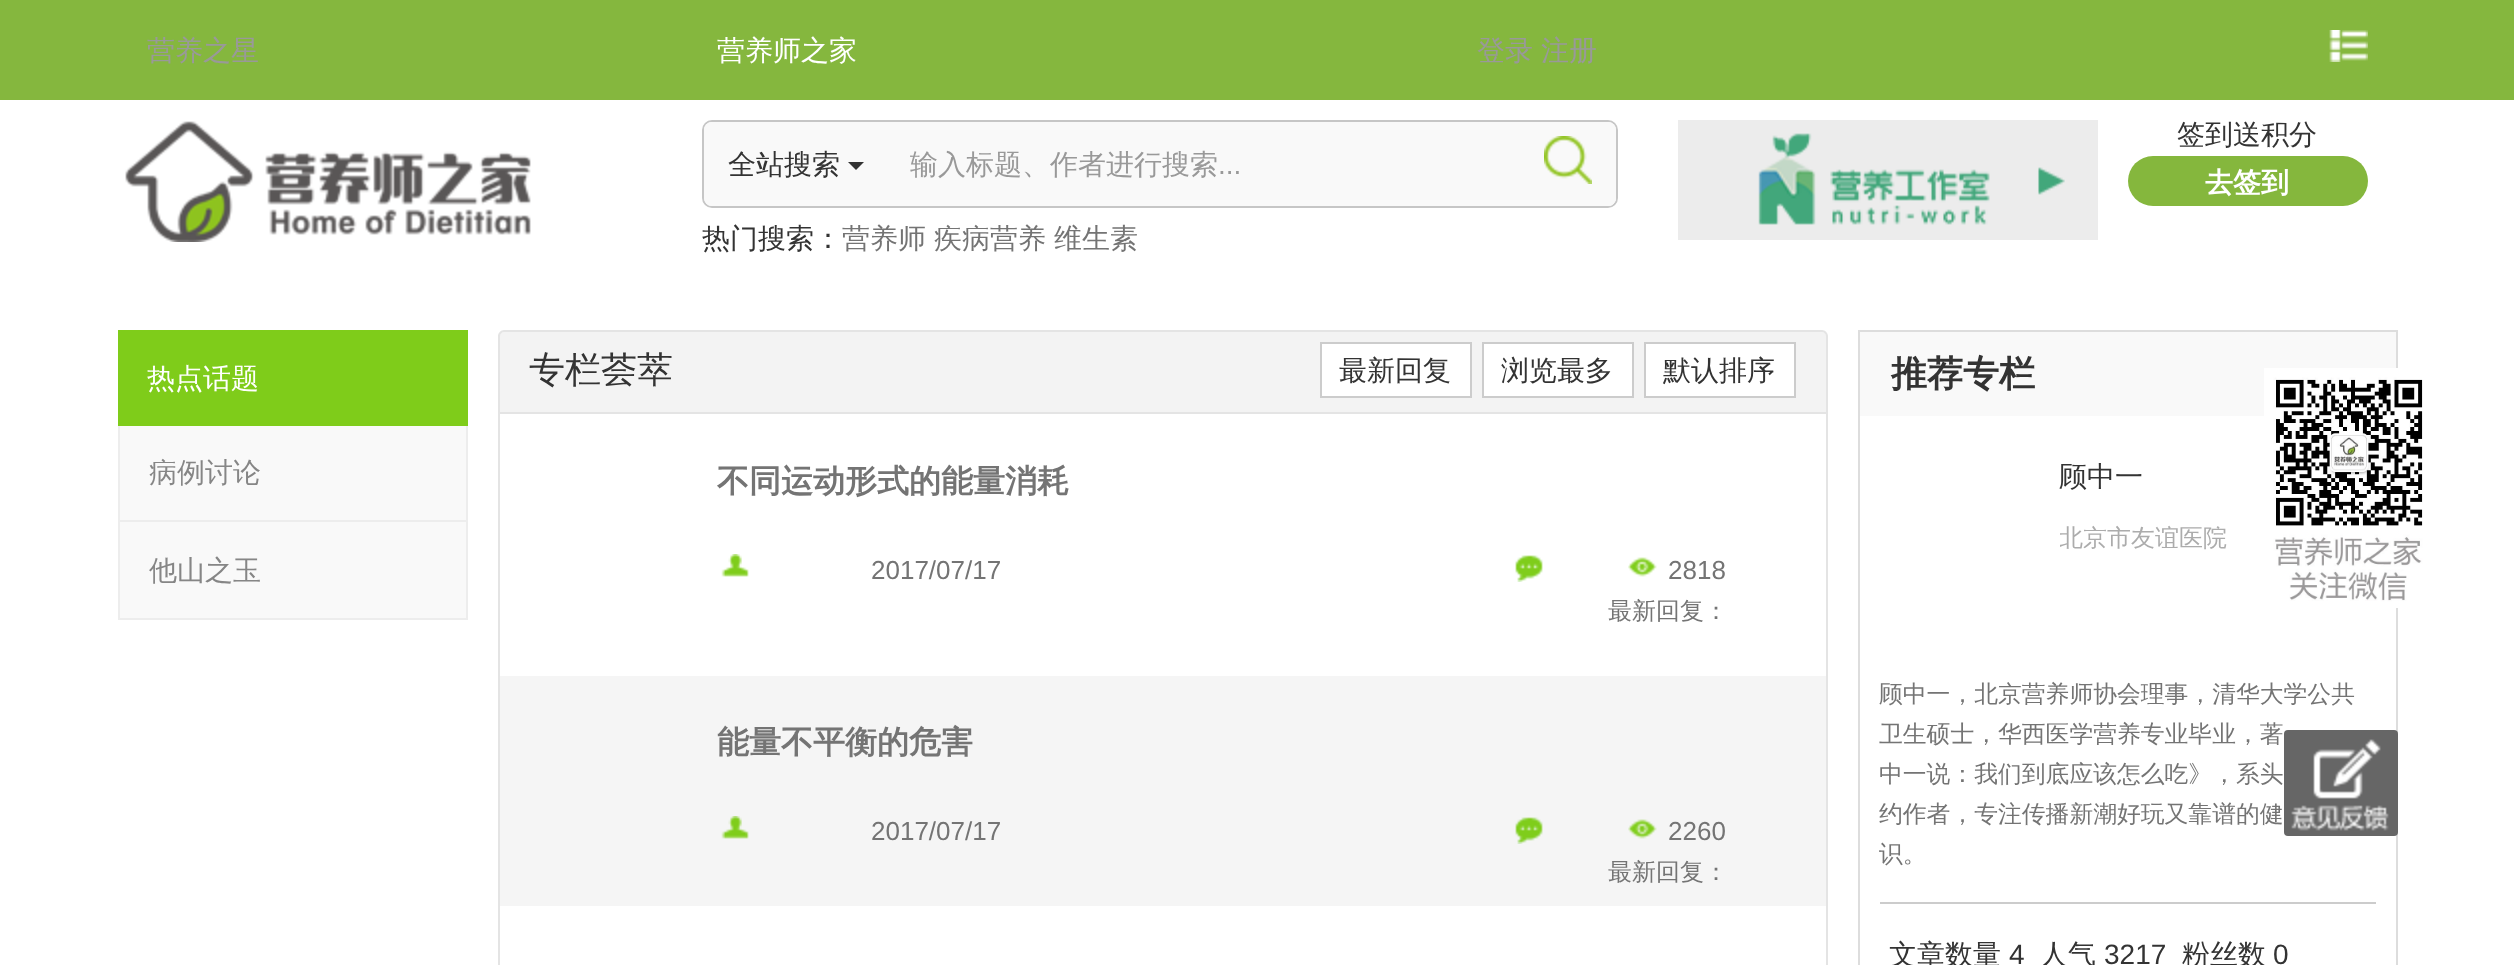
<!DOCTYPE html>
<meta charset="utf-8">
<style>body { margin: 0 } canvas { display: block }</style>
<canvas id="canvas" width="2514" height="965"></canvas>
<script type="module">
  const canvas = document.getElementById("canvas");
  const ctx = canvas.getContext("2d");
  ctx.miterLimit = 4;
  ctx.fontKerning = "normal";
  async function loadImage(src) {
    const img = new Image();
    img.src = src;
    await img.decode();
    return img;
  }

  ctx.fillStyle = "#ffffff";
  ctx.fillRect(0, 0, 2514, 965);
  ctx.fillStyle = "#85b73e";
  ctx.fillRect(0, 0, 2514, 100);
  ctx.font = "500 28px WenQuanYi Zen Hei";
  ctx.fillStyle = "#999999";
  ctx.fillText("营养之星", 147, 60);
  ctx.fillStyle = "#ffffff";
  ctx.fillText("营养师之家", 717, 60);
  ctx.fillStyle = "#999999";
  ctx.fillText("登录", 1477, 60);
  ctx.fillText("注册", 1541, 60);
  ctx.drawImage(await loadImage("img1.png"), 2329, 30, 39, 32);
  ctx.drawImage(await loadImage("img2.png"), 125, 121, 406, 121);
  ctx.beginPath();
  ctx.roundRect(703, 121, 914, 86, 9);
  ctx.strokeStyle = "#c6c6c6";
  ctx.lineWidth = 2;
  ctx.stroke();
  ctx.fillStyle = "#f9f9f9";
  ctx.beginPath();
  ctx.roundRect(704, 122, 184, 84, [8, 0, 0, 8]);
  ctx.fill();
  ctx.fillStyle = "#333333";
  ctx.fillText("全站搜索", 728, 174);
  ctx.beginPath();
  ctx.moveTo(848, 162);
  ctx.lineTo(864, 162);
  ctx.lineTo(856, 170);
  ctx.closePath();
  ctx.fill();
  ctx.fillStyle = "#f9f9f9";
  ctx.fillRect(888, 122, 634, 84);
  ctx.fillStyle = "#999999";
  ctx.fillText("输入标题、作者进行搜索", 910, 174);
  ctx.font = "28px Liberation Sans";
  ctx.fillText("...", 1218, 174);
  ctx.fillStyle = "#f9f9f9";
  ctx.beginPath();
  ctx.roundRect(1522, 122, 94, 84, [0, 8, 8, 0]);
  ctx.fill();
  ctx.beginPath();
  ctx.roundRect(1520, 124, 96, 82, [0, 8, 8, 0]);
  ctx.fill();
  ctx.drawImage(await loadImage("img3.png"), 1544, 136, 48, 48);
  ctx.font = "500 28px WenQuanYi Zen Hei";
  ctx.fillStyle = "#333333";
  ctx.fillText("热门搜索：", 702, 248);
  ctx.fillStyle = "#747474";
  ctx.fillText("营养师", 842, 248);
  ctx.fillText("疾病营养", 934, 248);
  ctx.fillText("维生素", 1054, 248);
  ctx.drawImage(await loadImage("img4.png"), 1678, 120, 420, 120);
  ctx.fillStyle = "#333333";
  ctx.fillText("签到送积分", 2177, 144);
  ctx.fillStyle = "#85b73d";
  ctx.beginPath();
  ctx.roundRect(2128, 156, 240, 50, 25);
  ctx.fill();
  ctx.font = "bold 28px WenQuanYi Zen Hei";
  ctx.fillStyle = "#ffffff";
  ctx.fillText("去签到", 2205, 192);
  ctx.fillStyle = "#f9f9f9";
  ctx.fillRect(120, 426, 346, 192);
  ctx.strokeStyle = "#ededed";
  ctx.strokeRect(119, 331, 348, 288);
  ctx.fillStyle = "#7fcc1a";
  ctx.fillRect(118, 330, 350, 96);
  ctx.font = "500 28px WenQuanYi Zen Hei";
  ctx.fillStyle = "#ffffff";
  ctx.fillText("热点话题", 147, 388);
  ctx.fillStyle = "#ededed";
  ctx.fillRect(120, 520, 346, 2);
  ctx.fillStyle = "#868686";
  ctx.fillText("病例讨论", 149, 482);
  ctx.fillText("他山之玉", 149, 580);
  ctx.fillStyle = "#f3f3f3";
  ctx.beginPath();
  ctx.roundRect(500, 332, 1326, 80, [4, 4, 0, 0]);
  ctx.fill();
  ctx.fillStyle = "#e4e4e4";
  ctx.beginPath();
  ctx.moveTo(504, 330);
  ctx.lineTo(1822, 330);
  ctx.bezierCurveTo(1825, 330, 1828, 333, 1828, 336);
  ctx.lineTo(1828, 412);
  ctx.lineTo(498, 412);
  ctx.lineTo(498, 336);
  ctx.bezierCurveTo(498, 333, 501, 330, 504, 330);
  ctx.closePath();
  ctx.moveTo(504, 332);
  ctx.lineTo(1822, 332);
  ctx.bezierCurveTo(1824, 332, 1826, 334, 1826, 336);
  ctx.lineTo(1826, 412);
  ctx.lineTo(500, 412);
  ctx.lineTo(500, 336);
  ctx.bezierCurveTo(500, 334, 502, 332, 504, 332);
  ctx.closePath();
  ctx.fill("evenodd");
  ctx.font = "500 36px WenQuanYi Zen Hei";
  ctx.fillStyle = "#333333";
  ctx.fillText("专栏荟萃", 529, 382);
  ctx.fillStyle = "#ffffff";
  ctx.beginPath();
  ctx.rect(1321, 343, 150, 54);
  ctx.fill();
  ctx.strokeStyle = "#cccccc";
  ctx.stroke();
  ctx.font = "500 28px WenQuanYi Zen Hei";
  ctx.fillStyle = "#333333";
  ctx.fillText("最新回复", 1339, 380);
  ctx.fillStyle = "#ffffff";
  ctx.beginPath();
  ctx.rect(1483, 343, 150, 54);
  ctx.fill();
  ctx.stroke();
  ctx.fillStyle = "#333333";
  ctx.fillText("浏览最多", 1501, 380);
  ctx.fillStyle = "#ffffff";
  ctx.beginPath();
  ctx.rect(1645, 343, 150, 54);
  ctx.fill();
  ctx.stroke();
  ctx.fillStyle = "#333333";
  ctx.fillText("默认排序", 1663, 380);
  ctx.strokeStyle = "#e4e4e4";
  ctx.strokeRect(499, 413, 1328, 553);
  ctx.font = "bold 32px WenQuanYi Zen Hei";
  ctx.fillStyle = "#747474";
  ctx.fillText("不同运动形式的能量消耗", 717, 492);
  ctx.drawImage(await loadImage("img5.png"), 721, 554, 28, 23);
  ctx.font = "26px Liberation Sans";
  ctx.fillText("2017/07/17", 871, 579);
  ctx.drawImage(await loadImage("img6.png"), 1515, 555, 28, 27);
  ctx.drawImage(await loadImage("img7.png"), 1628, 557, 29, 20);
  ctx.fillText("2818", 1668, 579);
  ctx.font = "500 24px WenQuanYi Zen Hei";
  ctx.fillText("最新回复：", 1608, 619);
  ctx.fillStyle = "#f5f5f5";
  ctx.fillRect(500, 676, 1326, 230);
  ctx.font = "bold 32px WenQuanYi Zen Hei";
  ctx.fillStyle = "#747474";
  ctx.fillText("能量不平衡的危害", 717, 753);
  ctx.drawImage(await loadImage("img8.png"), 721, 816, 28, 23);
  ctx.font = "26px Liberation Sans";
  ctx.fillText("2017/07/17", 871, 840);
  ctx.drawImage(await loadImage("img9.png"), 1515, 817, 28, 27);
  ctx.drawImage(await loadImage("img10.png"), 1628, 819, 29, 20);
  ctx.fillText("2260", 1668, 840);
  ctx.font = "500 24px WenQuanYi Zen Hei";
  ctx.fillText("最新回复：", 1608, 880);
  ctx.strokeStyle = "#dddddd";
  ctx.strokeRect(1859, 331, 538, 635);
  ctx.fillStyle = "#f9f9f9";
  ctx.fillRect(1860, 332, 536, 84);
  ctx.font = "bold 36px WenQuanYi Zen Hei";
  ctx.fillStyle = "#333333";
  ctx.fillText("推荐专栏", 1891, 386);
  ctx.font = "500 28px WenQuanYi Zen Hei";
  ctx.fillText("顾中一", 2059, 486);
  ctx.save();
  ctx.beginPath();
  ctx.rect(2060, 516, 336, 40);
  ctx.clip();
  ctx.font = "500 24px WenQuanYi Zen Hei";
  ctx.fillStyle = "#acacac";
  ctx.fillText("北京市友谊医院", 2059, 546);
  ctx.restore();
  ctx.font = "500 23.8px WenQuanYi Zen Hei";
  ctx.fillStyle = "#747474";
  ctx.fillText("顾中一，北京营养师协会理事，清华大学公共", 1879, 702);
  ctx.fillText("卫生硕士，华西医学营养专业毕业，著", 1879, 742);
  ctx.fillText("中一说：我们到底应该怎么吃》，系头", 1879, 782);
  ctx.fillText("约作者，专注传播新潮好玩又靠谱的健", 1879, 822);
  ctx.fillText("识。", 1879, 862);
  ctx.fillStyle = "#cccccc";
  ctx.fillRect(1880, 902, 496, 2);
  ctx.font = "500 28px WenQuanYi Zen Hei";
  ctx.fillStyle = "#333333";
  ctx.fillText("文章数量", 1889, 964);
  ctx.font = "28px Liberation Sans";
  ctx.fillText("4", 2009, 964);
  ctx.font = "500 28px WenQuanYi Zen Hei";
  ctx.fillText("人气", 2040, 964);
  ctx.font = "28px Liberation Sans";
  ctx.fillText("3217", 2104, 964);
  ctx.font = "500 28px WenQuanYi Zen Hei";
  ctx.fillText("粉丝数", 2182, 964);
  ctx.font = "28px Liberation Sans";
  ctx.fillText("0", 2273, 964);
  ctx.drawImage(await loadImage("img11.png"), 2264, 368, 159, 240);
  ctx.drawImage(await loadImage("img12.png"), 2284, 730, 114, 106);
</script>
